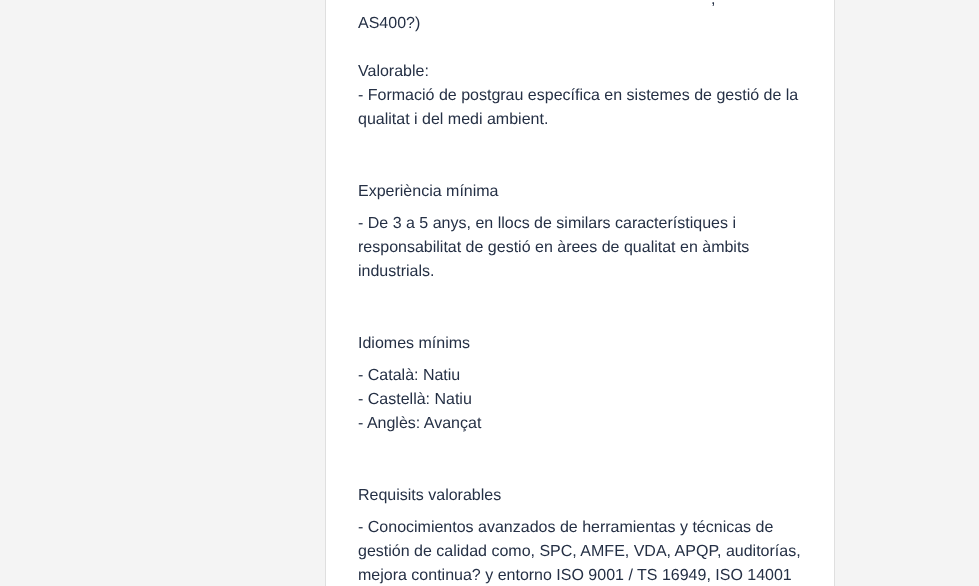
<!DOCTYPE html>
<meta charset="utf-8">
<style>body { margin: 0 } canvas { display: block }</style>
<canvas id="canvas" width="979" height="586"></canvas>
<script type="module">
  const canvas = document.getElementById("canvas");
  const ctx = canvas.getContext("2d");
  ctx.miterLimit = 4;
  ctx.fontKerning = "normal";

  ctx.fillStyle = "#f4f4f4";
  ctx.fillRect(0, 0, 979, 586);
  ctx.fillStyle = "#ffffff";
  ctx.beginPath();
  ctx.rect(325.5, -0.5, 509, 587);
  ctx.fill();
  ctx.strokeStyle = "#dfdfdf";
  ctx.stroke();
  ctx.font = "16px Liberation Sans";
  ctx.fillStyle = "#253045";
  ctx.fillText(",", 711, 4);
  ctx.fillText("AS400?)", 358, 28);
  ctx.fillText("Valorable:", 358, 76);
  ctx.fillText("- Formació de postgrau específica en sistemes de gestió de la", 358, 100);
  ctx.fillText("qualitat i del medi ambient.", 358, 124);
  ctx.fillText("Experiència mínima", 358, 196);
  ctx.fillText("- De 3 a 5 anys, en llocs de similars característiques i", 358, 228);
  ctx.fillText("responsabilitat de gestió en àrees de qualitat en àmbits", 358, 252);
  ctx.fillText("industrials.", 358, 276);
  ctx.fillText("Idiomes mínims", 358, 348);
  ctx.fillText("- Català: Natiu", 358, 380);
  ctx.fillText("- Castellà: Natiu", 358, 404);
  ctx.fillText("- Anglès: Avançat", 358, 428);
  ctx.fillText("Requisits valorables", 358, 500);
  ctx.fillText("- Conocimientos avanzados de herramientas y técnicas de", 358, 532);
  ctx.fillText("gestión de calidad como, SPC, AMFE, VDA, APQP, auditorías,", 358, 556);
  ctx.fillText("mejora continua? y entorno ISO 9001 / TS 16949, ISO 14001", 358, 580);
</script>
